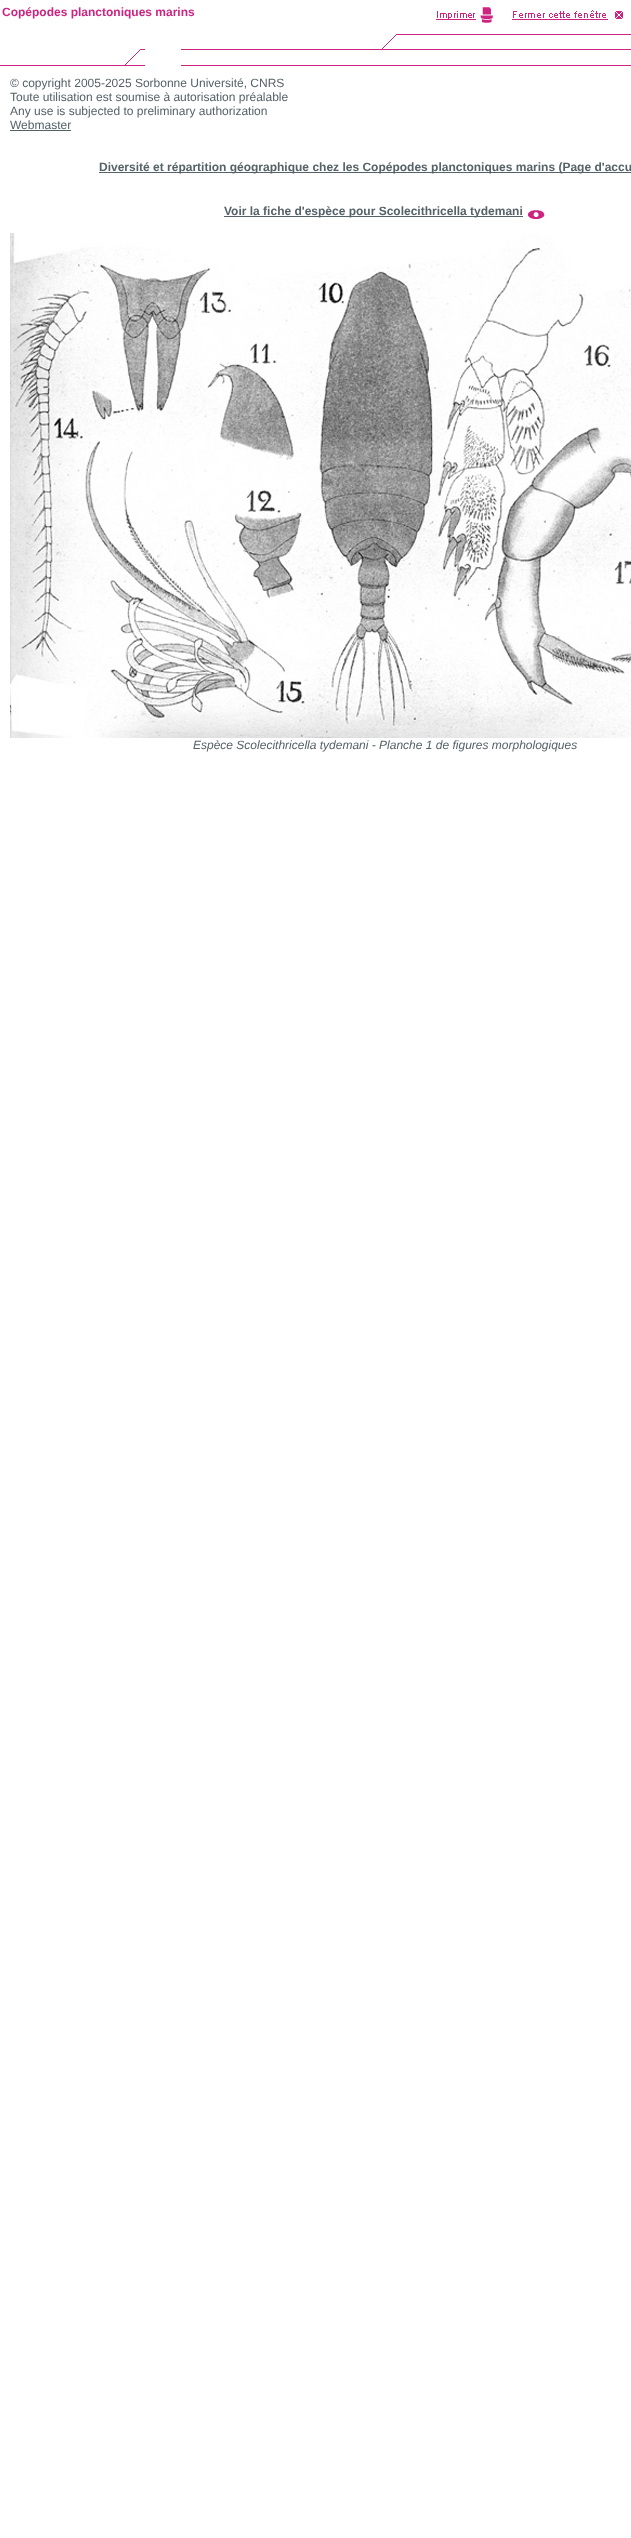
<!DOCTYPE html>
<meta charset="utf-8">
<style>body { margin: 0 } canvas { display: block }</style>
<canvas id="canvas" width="631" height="2538"></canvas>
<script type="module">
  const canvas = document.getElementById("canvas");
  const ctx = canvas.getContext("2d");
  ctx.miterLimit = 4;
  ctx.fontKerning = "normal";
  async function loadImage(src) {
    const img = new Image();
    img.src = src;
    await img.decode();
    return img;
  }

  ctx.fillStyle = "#ffffff";
  ctx.fillRect(0, 0, 631, 2538);
  ctx.drawImage(await loadImage("img1.png"), 0, 49, 145, 17);
  ctx.drawImage(await loadImage("img2.png"), 181, 7, 450, 59);
  ctx.font = "bold 12px Liberation Sans";
  ctx.fillStyle = "#cd2481";
  ctx.fillText("Copépodes planctoniques marins", 2, 16);
  ctx.font = "12px Liberation Sans";
  ctx.fillStyle = "#556268";
  ctx.fillText("© copyright 2005-2025 Sorbonne Université, CNRS", 10, 87);
  ctx.fillText("Toute utilisation est soumise à autorisation préalable", 10, 101);
  ctx.fillText("Any use is subjected to preliminary authorization", 10, 115);
  ctx.fillText("Webmaster", 10, 129);
  ctx.fillRect(10, 130, 61, 1);
  ctx.fillRect(99, 172, 532, 1);
  ctx.font = "bold 12px Liberation Sans";
  ctx.fillText("Diversité et répartition géographique chez les Copépodes planctoniques marins (Page d'accu", 99, 171);
  ctx.fillRect(224, 216, 299, 1);
  ctx.fillText("Voir la fiche d'espèce pour Scolecithricella tydemani", 224, 215);
  ctx.drawImage(await loadImage("img3.png"), 528, 210, 17, 9);
  ctx.drawImage(await loadImage("img4.png"), 10, 233, 621, 505);
  ctx.font = "italic 12px Liberation Sans";
  ctx.fillText("Espèce Scolecithricella tydemani - Planche 1 de figures morphologiques", 193, 749);
</script>
